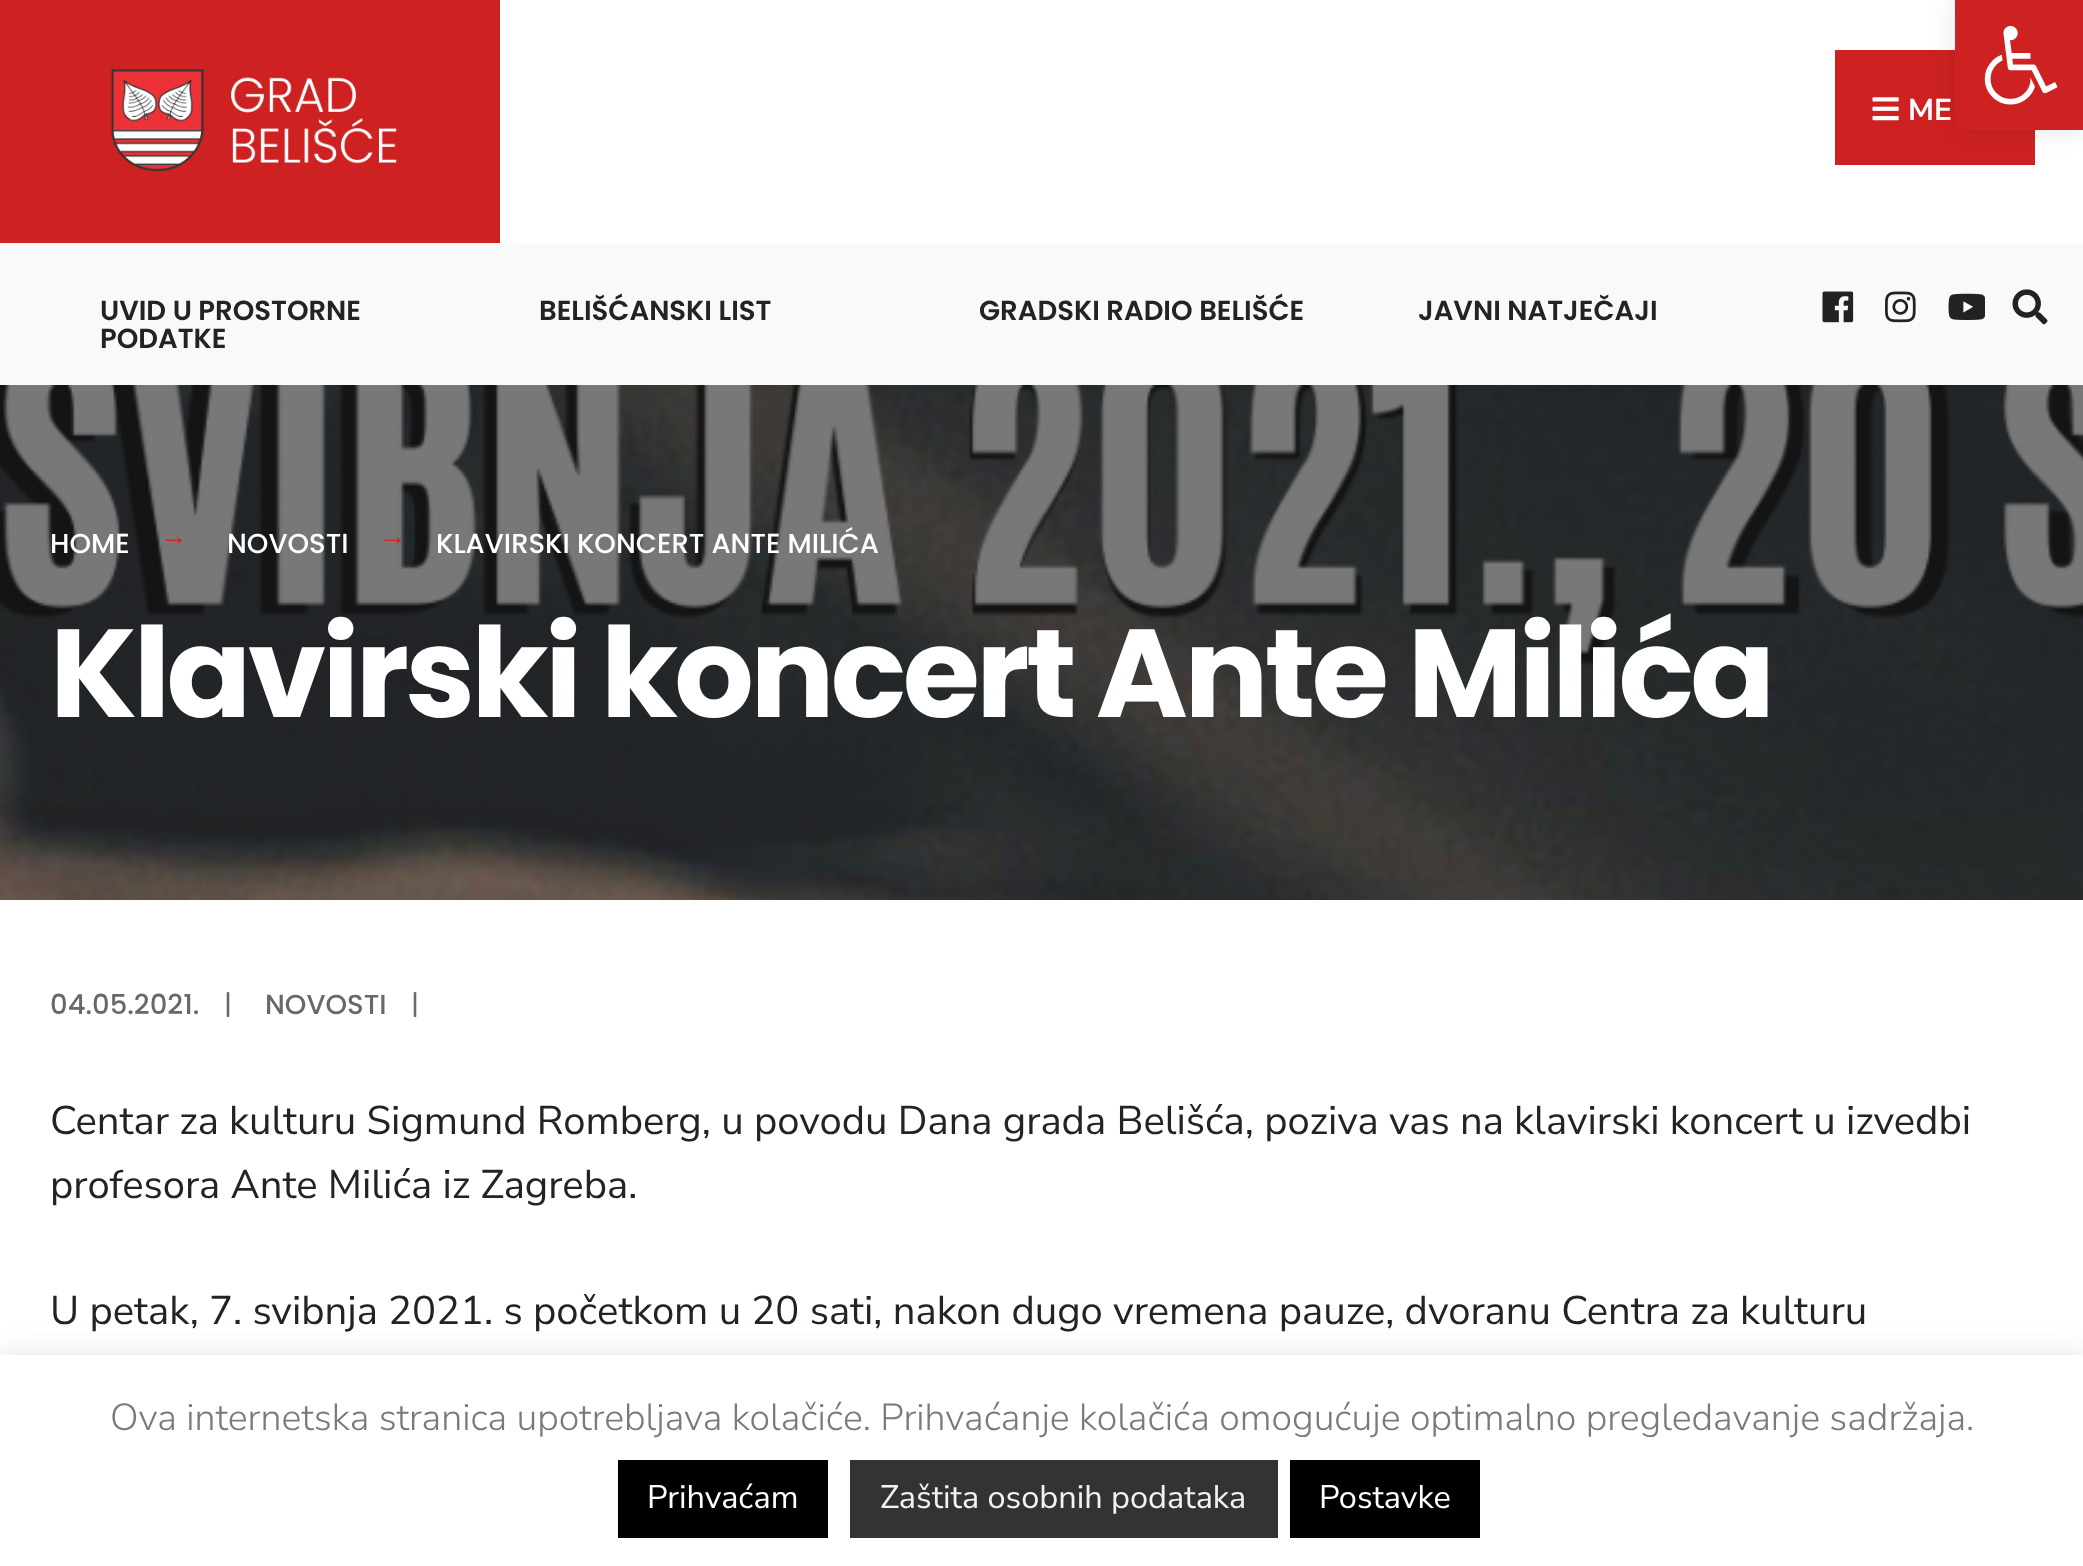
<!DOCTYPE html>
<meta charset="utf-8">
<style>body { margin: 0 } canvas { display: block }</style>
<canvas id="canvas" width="2083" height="1566"></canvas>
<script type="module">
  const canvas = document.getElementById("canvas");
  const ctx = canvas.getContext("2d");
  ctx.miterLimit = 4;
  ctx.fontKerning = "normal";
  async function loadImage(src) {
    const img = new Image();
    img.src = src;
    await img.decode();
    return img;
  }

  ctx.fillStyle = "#ffffff";
  ctx.fillRect(0, 0, 2083, 1566);
  ctx.fillStyle = "#ce2222";
  ctx.fillRect(0, 0, 500, 243);
  ctx.drawImage(await loadImage("img1.png"), 110, 69, 287, 103);
  ctx.fillRect(1835, 50, 200, 115);
  ctx.drawImage(await loadImage("img2.png"), 1872, 97, 27, 24);
  ctx.font = "bold 30px Nunito Sans";
  ctx.fillStyle = "#ffffff";
  ctx.fillText("ME", 1908, 120);
  ctx.fillStyle = "#f9f9f9";
  ctx.fillRect(0, 243, 2083, 142);
  ctx.font = "600 27.5px Poppins";
  ctx.fillStyle = "#232323";
  ctx.fillText("UVID U PROSTORNE", 100, 320);
  ctx.fillText("PODATKE", 100, 348);
  ctx.fillText("BELIŠĆANSKI LIST", 539, 320);
  ctx.fillText("GRADSKI RADIO BELIŠĆE", 979, 320);
  ctx.fillText("JAVNI NATJEČAJI", 1418, 320);
  ctx.drawImage(await loadImage("img3.png"), 1822, 291, 32, 32);
  ctx.drawImage(await loadImage("img4.png"), 1885, 291, 31, 32);
  ctx.drawImage(await loadImage("img5.png"), 1948, 293, 37, 27);
  ctx.drawImage(await loadImage("img6.png"), 2012, 289, 36, 36);
  ctx.fillStyle = "#1e1e1e";
  ctx.fillRect(0, 385, 2083, 515);
  ctx.drawImage(await loadImage("img7.png"), 0, 385, 2083, 515);
  ctx.font = "500 27.5px Poppins";
  ctx.fillStyle = "#ffffff";
  ctx.fillText("HOME", 50, 553);
  ctx.font = "27.5px Liberation Serif";
  ctx.fillStyle = "#ce2222";
  ctx.fillText("→", 160, 545);
  ctx.font = "500 27.5px Poppins";
  ctx.fillStyle = "#ffffff";
  ctx.fillText("NOVOSTI", 227, 553);
  ctx.font = "27.5px Liberation Serif";
  ctx.fillStyle = "#ce2222";
  ctx.fillText("→", 379, 545);
  ctx.font = "500 27.5px Poppins";
  ctx.fillStyle = "#ffffff";
  ctx.fillText("KLAVIRSKI KONCERT ANTE MILIĆA", 436, 553);
  ctx.letterSpacing = "-3.75px";
  ctx.font = "bold 125.1px Poppins";
  ctx.fillText("Klavirski koncert Ante Milića", 50, 717);
  ctx.letterSpacing = "0px";
  ctx.font = "500 27.5px Poppins";
  ctx.fillStyle = "#686868";
  ctx.fillText("04.05.2021.", 50, 1014);
  ctx.font = "27.5px Poppins";
  ctx.fillText("|", 224, 1014);
  ctx.font = "500 27.5px Poppins";
  ctx.fillText("NOVOSTI", 265, 1014);
  ctx.font = "27.5px Poppins";
  ctx.fillText("|", 411, 1014);
  ctx.font = "40px Nunito Sans";
  ctx.fillStyle = "#232323";
  ctx.fillText("Centar za kulturu Sigmund Romberg, u povodu Dana grada Belišća, poziva vas na klavirski koncert u izvedbi", 50, 1134);
  ctx.fillText("profesora Ante Milića iz Zagreba.", 50, 1198);
  ctx.fillText("U petak, 7. svibnja 2021. s početkom u 20 sati, nakon dugo vremena pauze, dvoranu Centra za kulturu", 50, 1324);
  ctx.fillStyle = "rgba(0, 0, 0, 0.1)";
  ctx.filter = "blur(12.5px)";
  ctx.beginPath();
  ctx.rect(1955, 0, 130, 130);
  ctx.fill();
  ctx.filter = "none";
  ctx.fillStyle = "#ce2222";
  ctx.fillRect(1955, 0, 128, 130);
  ctx.drawImage(await loadImage("img8.png"), 1984, 26, 74, 79);
  ctx.fillStyle = "rgba(172, 171, 171, 0.3)";
  ctx.filter = "blur(12.5px)";
  ctx.beginPath();
  ctx.rect(0, 1353, 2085, 212);
  ctx.fill();
  ctx.filter = "none";
  ctx.fillStyle = "#ffffff";
  ctx.fillRect(0, 1355, 2083, 211);
  ctx.font = "300 37.5px Nunito Sans";
  ctx.fillStyle = "#7a7a7a";
  ctx.fillText("Ova internetska stranica upotrebljava kolačiće. Prihvaćanje kolačića omogućuje optimalno pregledavanje sadržaja.", 110, 1430);
  ctx.fillStyle = "#000000";
  ctx.fillRect(618, 1460, 210, 78);
  ctx.font = "32.5px Nunito Sans";
  ctx.fillStyle = "#ffffff";
  ctx.fillText("Prihvaćam", 647, 1508);
  ctx.fillStyle = "#333333";
  ctx.fillRect(850, 1460, 428, 78);
  ctx.fillStyle = "#f2f2f2";
  ctx.fillText("Zaštita osobnih podataka", 880, 1508);
  ctx.fillStyle = "#000000";
  ctx.fillRect(1290, 1460, 190, 78);
  ctx.fillStyle = "#ffffff";
  ctx.fillText("Postavke", 1319, 1508);
</script>
